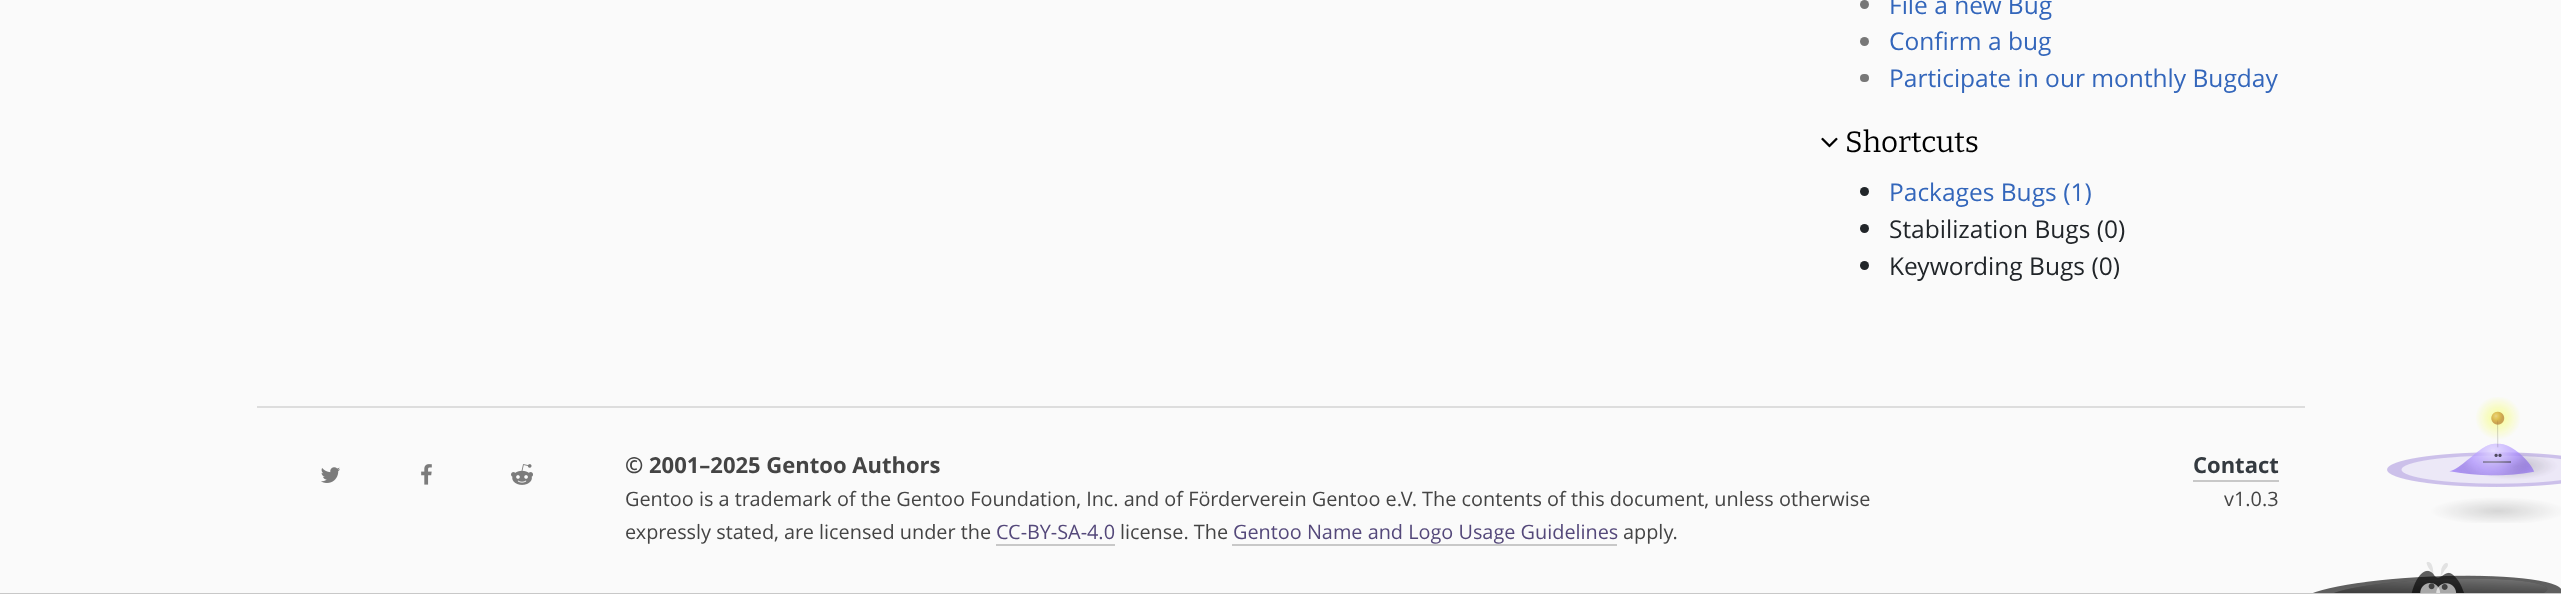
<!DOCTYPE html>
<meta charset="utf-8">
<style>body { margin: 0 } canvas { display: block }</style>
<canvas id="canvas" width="2561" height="594"></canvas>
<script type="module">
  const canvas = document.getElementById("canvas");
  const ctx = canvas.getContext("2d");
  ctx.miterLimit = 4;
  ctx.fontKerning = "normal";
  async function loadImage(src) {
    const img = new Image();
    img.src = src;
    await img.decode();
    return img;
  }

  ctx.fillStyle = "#fafafa";
  ctx.fillRect(0, 0, 2561, 594);
  ctx.fillStyle = "#777777";
  ctx.beginPath();
  ctx.arc(1864.5, 4.5, 4.5, 0, Math.PI * 2);
  ctx.fill();
  ctx.font = "24.5px Open Sans";
  ctx.fillStyle = "#3366bb";
  ctx.fillText("File a new Bug", 1889, 14);
  ctx.fillStyle = "#777777";
  ctx.beginPath();
  ctx.arc(1864.5, 41.5, 4.5, 0, Math.PI * 2);
  ctx.fill();
  ctx.fillStyle = "#3366bb";
  ctx.fillText("Confirm a bug", 1889, 50);
  ctx.fillStyle = "#777777";
  ctx.beginPath();
  ctx.roundRect(1860, 74, 9, 8, 4);
  ctx.fill();
  ctx.fillStyle = "#3366bb";
  ctx.fillText("Participate in our monthly Bugday", 1889, 87);
  ctx.drawImage(await loadImage("img1.png"), 1821, 137, 17, 11);
  ctx.font = "29.5px Bitter";
  ctx.fillStyle = "#000000";
  ctx.fillText("Shortcuts", 1845, 152);
  ctx.fillStyle = "#212529";
  ctx.beginPath();
  ctx.arc(1864.5, 191.5, 4.5, 0, Math.PI * 2);
  ctx.fill();
  ctx.font = "24.5px Open Sans";
  ctx.fillStyle = "#3366bb";
  ctx.fillText("Packages Bugs (1)", 1889, 201);
  ctx.fillStyle = "#212529";
  ctx.beginPath();
  ctx.arc(1864.5, 228.5, 4.5, 0, Math.PI * 2);
  ctx.fill();
  ctx.fillText("Stabilization Bugs (0)", 1889, 238);
  ctx.beginPath();
  ctx.arc(1864.5, 265.5, 4.5, 0, Math.PI * 2);
  ctx.fill();
  ctx.fillText("Keywording Bugs (0)", 1889, 275);
  ctx.drawImage(await loadImage("img2.png"), 2387, 397, 174, 126);
  ctx.drawImage(await loadImage("img3.png"), 2313, 562, 248, 31);
  ctx.fillStyle = "#c8c8c8";
  ctx.fillRect(0, 593, 2561, 1);
  ctx.fillStyle = "#dddddd";
  ctx.fillRect(257, 406, 2048, 2);
  ctx.drawImage(await loadImage("img4.png"), 321, 467, 19, 16);
  ctx.drawImage(await loadImage("img5.png"), 421, 464, 11, 21);
  ctx.drawImage(await loadImage("img6.png"), 511, 464, 22, 21);
  ctx.font = "bold 22px Open Sans";
  ctx.fillStyle = "#444444";
  ctx.fillText("© 2001–2025 Gentoo Authors", 625, 473);
  ctx.font = "19.85px Open Sans";
  ctx.fillText("Gentoo is a trademark of the Gentoo Foundation, Inc. and of Förderverein Gentoo e.V. The contents of this document, unless otherwise", 625, 506);
  ctx.fillText("expressly stated, are licensed under the", 625, 539);
  ctx.fillStyle = "#54487a";
  ctx.fillText("CC-BY-SA-4.0", 996, 539);
  ctx.fillStyle = "#c8c8c8";
  ctx.fillRect(996, 544, 119, 2);
  ctx.fillStyle = "#444444";
  ctx.fillText("license. The", 1120, 539);
  ctx.fillStyle = "#54487a";
  ctx.fillText("Gentoo Name and Logo Usage Guidelines", 1233, 539);
  ctx.fillStyle = "#c8c8c8";
  ctx.fillRect(1232, 544, 385, 2);
  ctx.fillStyle = "#444444";
  ctx.fillText("apply.", 1623, 539);
  ctx.font = "bold 22px Open Sans";
  ctx.fillStyle = "#343a40";
  ctx.fillText("Contact", 2193, 473);
  ctx.fillStyle = "#c8c8c8";
  ctx.fillRect(2193, 480, 86, 2);
  ctx.font = "19.85px Open Sans";
  ctx.fillStyle = "#444444";
  ctx.fillText("v1.0.3", 2224, 506);
</script>
